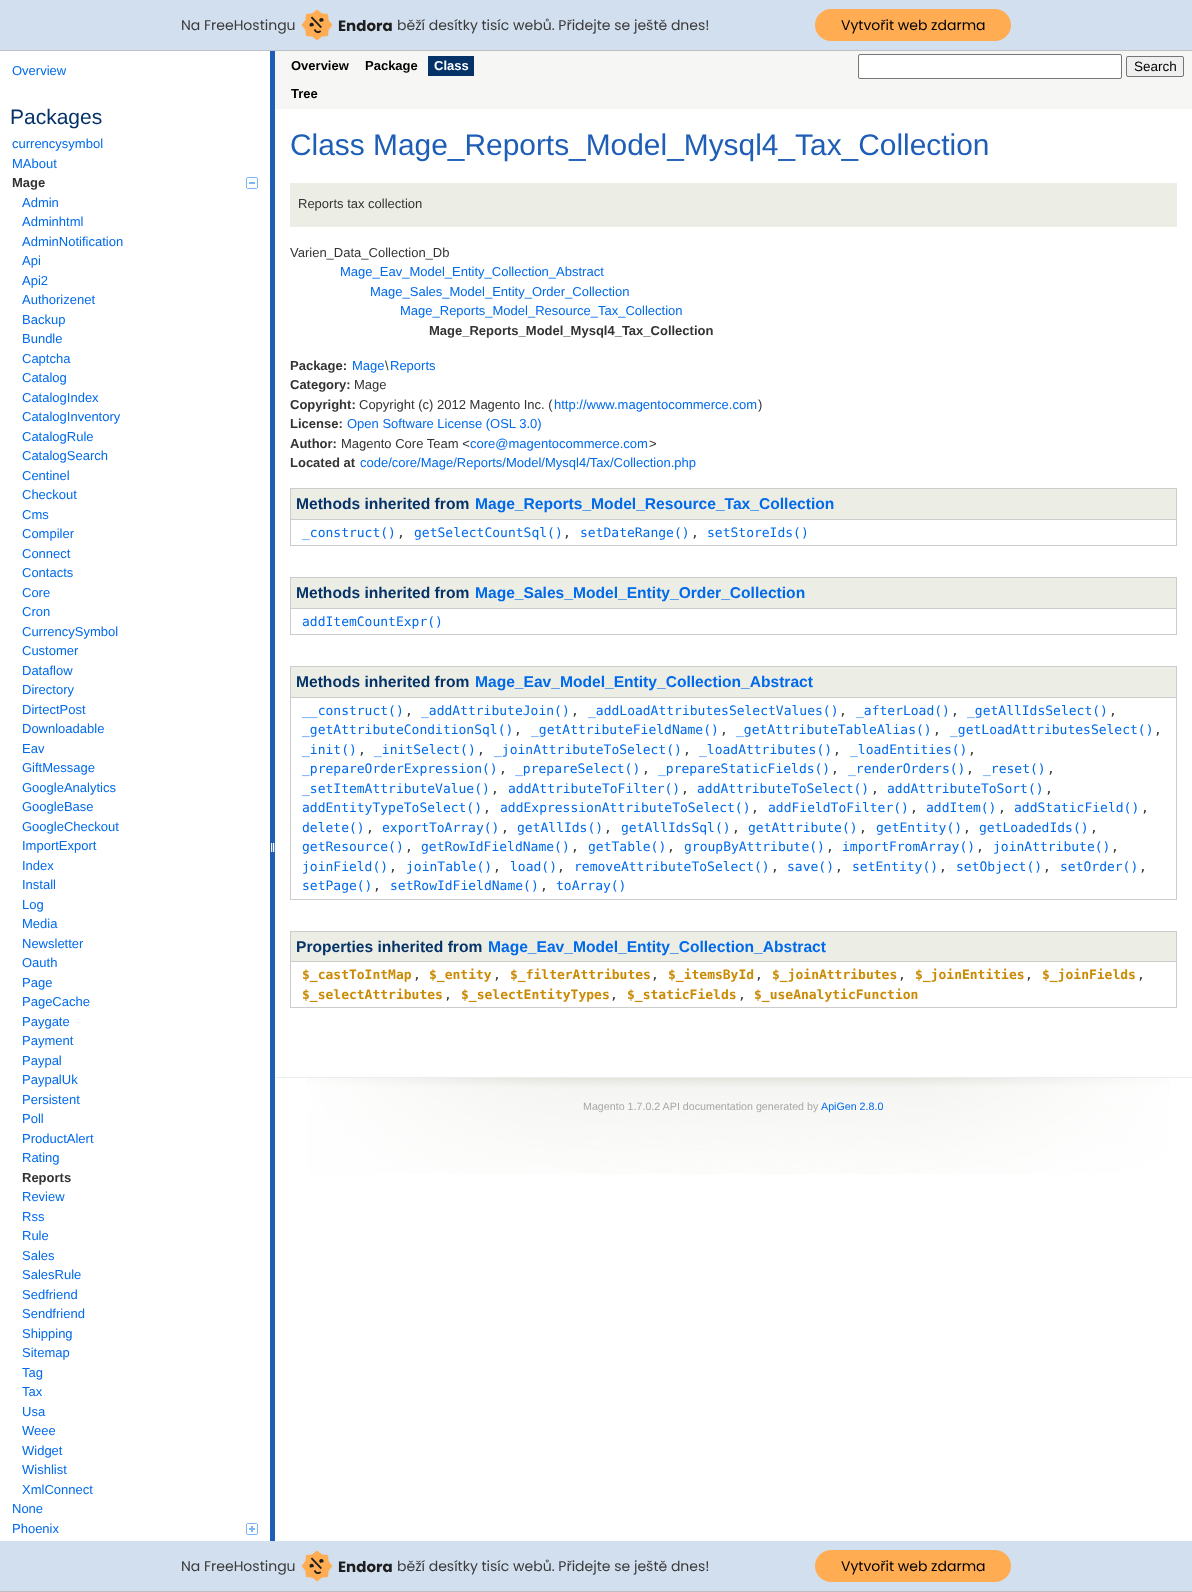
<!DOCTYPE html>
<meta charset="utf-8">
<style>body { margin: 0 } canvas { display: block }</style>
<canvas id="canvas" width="1192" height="1592"></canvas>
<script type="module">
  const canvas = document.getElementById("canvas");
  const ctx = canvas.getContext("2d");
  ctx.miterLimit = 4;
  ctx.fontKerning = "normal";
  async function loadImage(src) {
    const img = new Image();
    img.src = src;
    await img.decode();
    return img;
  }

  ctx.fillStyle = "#ffffff";
  ctx.fillRect(0, 0, 1192, 1592);
  ctx.fillStyle = "#d2dfef";
  ctx.fillRect(0, 0, 1192, 50);
  ctx.fillStyle = "#bebfc4";
  ctx.fillRect(0, 50, 1192, 1);
  ctx.font = "14px Poppins";
  ctx.fillStyle = "#3a3a3a";
  ctx.fillText("Na FreeHostingu", 181, 30);
  ctx.drawImage(await loadImage("img1.png"), 301, 9, 32, 32);
  ctx.font = "bold 15px Poppins";
  ctx.fillStyle = "#1e1e1e";
  ctx.fillText("Endora", 338, 31);
  ctx.font = "14px Poppins";
  ctx.fillStyle = "#3a3a3a";
  ctx.fillText("běží desítky tisíc webů. Přidejte se ještě dnes!", 397, 30);
  ctx.fillStyle = "#ffac52";
  ctx.beginPath();
  ctx.roundRect(815, 9, 196, 32, 16);
  ctx.fill();
  ctx.fillStyle = "#000000";
  ctx.fillText("Vytvořit web zdarma", 841, 30);
  ctx.font = "13px Liberation Sans";
  ctx.fillStyle = "#006aeb";
  ctx.fillText("Overview", 12, 75);
  ctx.font = "21px Liberation Sans";
  ctx.fillStyle = "#053368";
  ctx.fillText("Packages", 10, 124);
  ctx.font = "13px Liberation Sans";
  ctx.fillStyle = "#006aeb";
  ctx.fillText("currencysymbol", 12, 148);
  ctx.fillText("MAbout", 12, 168);
  ctx.font = "bold 13px Liberation Sans";
  ctx.fillStyle = "#333333";
  ctx.fillText("Mage", 12, 187);
  ctx.drawImage(await loadImage("img2.png"), 246, 177, 12, 12);
  ctx.font = "13px Liberation Sans";
  ctx.fillStyle = "#006aeb";
  ctx.fillText("Admin", 22, 207);
  ctx.fillText("Adminhtml", 22, 226);
  ctx.fillText("AdminNotification", 22, 246);
  ctx.fillText("Api", 22, 265);
  ctx.fillText("Api2", 22, 285);
  ctx.fillText("Authorizenet", 22, 304);
  ctx.fillText("Backup", 22, 324);
  ctx.fillText("Bundle", 22, 343);
  ctx.fillText("Captcha", 22, 363);
  ctx.fillText("Catalog", 22, 382);
  ctx.fillText("CatalogIndex", 22, 402);
  ctx.fillText("CatalogInventory", 22, 421);
  ctx.fillText("CatalogRule", 22, 441);
  ctx.fillText("CatalogSearch", 22, 460);
  ctx.fillText("Centinel", 22, 480);
  ctx.fillText("Checkout", 22, 499);
  ctx.fillText("Cms", 22, 519);
  ctx.fillText("Compiler", 22, 538);
  ctx.fillText("Connect", 22, 558);
  ctx.fillText("Contacts", 22, 577);
  ctx.fillText("Core", 22, 597);
  ctx.fillText("Cron", 22, 616);
  ctx.fillText("CurrencySymbol", 22, 636);
  ctx.fillText("Customer", 22, 655);
  ctx.fillText("Dataflow", 22, 675);
  ctx.fillText("Directory", 22, 694);
  ctx.fillText("DirtectPost", 22, 714);
  ctx.fillText("Downloadable", 22, 733);
  ctx.fillText("Eav", 22, 753);
  ctx.fillText("GiftMessage", 22, 772);
  ctx.fillText("GoogleAnalytics", 22, 792);
  ctx.fillText("GoogleBase", 22, 811);
  ctx.fillText("GoogleCheckout", 22, 831);
  ctx.fillText("ImportExport", 22, 850);
  ctx.fillText("Index", 22, 870);
  ctx.fillText("Install", 22, 889);
  ctx.fillText("Log", 22, 909);
  ctx.fillText("Media", 22, 928);
  ctx.fillText("Newsletter", 22, 948);
  ctx.fillText("Oauth", 22, 967);
  ctx.fillText("Page", 22, 987);
  ctx.fillText("PageCache", 22, 1006);
  ctx.fillText("Paygate", 22, 1026);
  ctx.fillText("Payment", 22, 1045);
  ctx.fillText("Paypal", 22, 1065);
  ctx.fillText("PaypalUk", 22, 1084);
  ctx.fillText("Persistent", 22, 1104);
  ctx.fillText("Poll", 22, 1123);
  ctx.fillText("ProductAlert", 22, 1143);
  ctx.fillText("Rating", 22, 1162);
  ctx.font = "bold 13px Liberation Sans";
  ctx.fillStyle = "#333333";
  ctx.fillText("Reports", 22, 1182);
  ctx.font = "13px Liberation Sans";
  ctx.fillStyle = "#006aeb";
  ctx.fillText("Review", 22, 1201);
  ctx.fillText("Rss", 22, 1221);
  ctx.fillText("Rule", 22, 1240);
  ctx.fillText("Sales", 22, 1260);
  ctx.fillText("SalesRule", 22, 1279);
  ctx.fillText("Sedfriend", 22, 1299);
  ctx.fillText("Sendfriend", 22, 1318);
  ctx.fillText("Shipping", 22, 1338);
  ctx.fillText("Sitemap", 22, 1357);
  ctx.fillText("Tag", 22, 1377);
  ctx.fillText("Tax", 22, 1396);
  ctx.fillText("Usa", 22, 1416);
  ctx.fillText("Weee", 22, 1435);
  ctx.fillText("Widget", 22, 1455);
  ctx.fillText("Wishlist", 22, 1474);
  ctx.fillText("XmlConnect", 22, 1494);
  ctx.fillText("None", 12, 1513);
  ctx.fillText("Phoenix", 12, 1533);
  ctx.drawImage(await loadImage("img3.png"), 246, 1523, 12, 12);
  ctx.fillStyle = "#1e5eb6";
  ctx.fillRect(270, 51, 5, 1490);
  ctx.drawImage(await loadImage("img4.png"), 271, 843, 4, 9);
  ctx.fillStyle = "#f6f6f4";
  ctx.fillRect(275, 51, 917, 58);
  ctx.font = "bold 13px Liberation Sans";
  ctx.fillStyle = "#000000";
  ctx.fillText("Overview", 291, 70);
  ctx.fillText("Package", 365, 70);
  ctx.fillStyle = "#053368";
  ctx.fillRect(428, 56, 46, 20);
  ctx.fillStyle = "#ffffff";
  ctx.fillText("Class", 434, 70);
  ctx.fillStyle = "#000000";
  ctx.fillText("Tree", 291, 98);
  ctx.fillStyle = "#ffffff";
  ctx.beginPath();
  ctx.roundRect(858.5, 54.5, 263, 24, 1.5);
  ctx.fill();
  ctx.strokeStyle = "#767676";
  ctx.stroke();
  ctx.fillStyle = "#efefef";
  ctx.beginPath();
  ctx.roundRect(1126.5, 56.5, 57, 20, 1.5);
  ctx.fill();
  ctx.stroke();
  ctx.font = "13.5px Liberation Sans";
  ctx.fillStyle = "#000000";
  ctx.fillText("Search", 1134, 71);
  ctx.font = "29.9px Liberation Sans";
  ctx.fillStyle = "#1e5eb6";
  ctx.fillText("Class Mage_Reports_Model_Mysql4_Tax_Collection", 290, 155);
  ctx.fillStyle = "#ecede5";
  ctx.fillRect(290, 183, 887, 44);
  ctx.font = "13px Liberation Sans";
  ctx.fillStyle = "#333333";
  ctx.fillText("Reports tax collection", 298, 208);
  ctx.fillText("Varien_Data_Collection_Db", 290, 257);
  ctx.fillStyle = "#006aeb";
  ctx.fillText("Mage_Eav_Model_Entity_Collection_Abstract", 340, 276);
  ctx.fillText("Mage_Sales_Model_Entity_Order_Collection", 370, 296);
  ctx.fillText("Mage_Reports_Model_Resource_Tax_Collection", 400, 315);
  ctx.font = "bold 13px Liberation Sans";
  ctx.fillStyle = "#333333";
  ctx.fillText("Mage_Reports_Model_Mysql4_Tax_Collection", 429, 335);
  ctx.fillText("Package:", 290, 370);
  ctx.font = "13px Liberation Sans";
  ctx.fillStyle = "#006aeb";
  ctx.fillText("Mage", 352, 370);
  ctx.fillStyle = "#333333";
  ctx.fillText("\\", 385, 370);
  ctx.fillStyle = "#006aeb";
  ctx.fillText("Reports", 390, 370);
  ctx.font = "bold 13px Liberation Sans";
  ctx.fillStyle = "#333333";
  ctx.fillText("Category:", 290, 389);
  ctx.font = "13px Liberation Sans";
  ctx.fillText("Mage", 354, 389);
  ctx.font = "bold 13px Liberation Sans";
  ctx.fillText("Copyright:", 290, 409);
  ctx.font = "13px Liberation Sans";
  ctx.fillText("Copyright (c) 2012 Magento Inc. (", 359, 409);
  ctx.fillStyle = "#006aeb";
  ctx.fillText("http://www.magentocommerce.com", 554, 409);
  ctx.fillStyle = "#333333";
  ctx.fillText(")", 758, 409);
  ctx.font = "bold 13px Liberation Sans";
  ctx.fillText("License:", 290, 428);
  ctx.font = "13px Liberation Sans";
  ctx.fillStyle = "#006aeb";
  ctx.fillText("Open Software License (OSL 3.0)", 347, 428);
  ctx.font = "bold 13px Liberation Sans";
  ctx.fillStyle = "#333333";
  ctx.fillText("Author:", 290, 448);
  ctx.font = "13px Liberation Sans";
  ctx.fillText("Magento Core Team <", 341, 448);
  ctx.fillStyle = "#006aeb";
  ctx.fillText("core@magentocommerce.com", 470, 448);
  ctx.fillStyle = "#333333";
  ctx.fillText(">", 649, 448);
  ctx.font = "bold 13px Liberation Sans";
  ctx.fillText("Located at", 290, 467);
  ctx.font = "13px Liberation Sans";
  ctx.fillStyle = "#006aeb";
  ctx.fillText("code/core/Mage/Reports/Model/Mysql4/Tax/Collection.php", 360, 467);
  ctx.fillStyle = "#cccccc";
  ctx.fillRect(290, 488, 887, 1);
  ctx.fillRect(1176, 488, 1, 58);
  ctx.fillRect(290, 545, 887, 1);
  ctx.fillRect(290, 488, 1, 58);
  ctx.fillStyle = "#ecede5";
  ctx.fillRect(291, 489, 885, 30);
  ctx.font = "bold 15.6px Liberation Sans";
  ctx.fillStyle = "#053368";
  ctx.fillText("Methods inherited from", 296, 509);
  ctx.fillStyle = "#006aeb";
  ctx.fillText("Mage_Reports_Model_Resource_Tax_Collection", 475, 509);
  ctx.fillStyle = "#cccccc";
  ctx.fillRect(290, 519, 887, 1);
  ctx.font = "13px DejaVu Sans Mono";
  ctx.fillStyle = "#006aeb";
  ctx.fillText("_construct()", 302, 537);
  ctx.fillStyle = "#333333";
  ctx.fillText(",", 397, 537);
  ctx.fillStyle = "#006aeb";
  ctx.fillText("getSelectCountSql()", 414, 537);
  ctx.fillStyle = "#333333";
  ctx.fillText(",", 563, 537);
  ctx.fillStyle = "#006aeb";
  ctx.fillText("setDateRange()", 580, 537);
  ctx.fillStyle = "#333333";
  ctx.fillText(",", 691, 537);
  ctx.fillStyle = "#006aeb";
  ctx.fillText("setStoreIds()", 707, 537);
  ctx.fillStyle = "#cccccc";
  ctx.fillRect(290, 577, 887, 1);
  ctx.fillRect(1176, 577, 1, 58);
  ctx.fillRect(290, 634, 887, 1);
  ctx.fillRect(290, 577, 1, 58);
  ctx.fillStyle = "#ecede5";
  ctx.fillRect(291, 578, 885, 30);
  ctx.font = "bold 15.6px Liberation Sans";
  ctx.fillStyle = "#053368";
  ctx.fillText("Methods inherited from", 296, 598);
  ctx.fillStyle = "#006aeb";
  ctx.fillText("Mage_Sales_Model_Entity_Order_Collection", 475, 598);
  ctx.fillStyle = "#cccccc";
  ctx.fillRect(290, 608, 887, 1);
  ctx.font = "13px DejaVu Sans Mono";
  ctx.fillStyle = "#006aeb";
  ctx.fillText("addItemCountExpr()", 302, 626);
  ctx.fillStyle = "#cccccc";
  ctx.fillRect(290, 666, 887, 1);
  ctx.fillRect(1176, 666, 1, 234);
  ctx.fillRect(290, 899, 887, 1);
  ctx.fillRect(290, 666, 1, 234);
  ctx.fillStyle = "#ecede5";
  ctx.fillRect(291, 667, 885, 30);
  ctx.font = "bold 15.6px Liberation Sans";
  ctx.fillStyle = "#053368";
  ctx.fillText("Methods inherited from", 296, 687);
  ctx.fillStyle = "#006aeb";
  ctx.fillText("Mage_Eav_Model_Entity_Collection_Abstract", 475, 687);
  ctx.fillStyle = "#cccccc";
  ctx.fillRect(290, 697, 887, 1);
  ctx.font = "13px DejaVu Sans Mono";
  ctx.fillStyle = "#006aeb";
  ctx.fillText("__construct()", 302, 715);
  ctx.fillStyle = "#333333";
  ctx.fillText(",", 405, 715);
  ctx.fillStyle = "#006aeb";
  ctx.fillText("_addAttributeJoin()", 421, 715);
  ctx.fillStyle = "#333333";
  ctx.fillText(",", 571, 715);
  ctx.fillStyle = "#006aeb";
  ctx.fillText("_addLoadAttributesSelectValues()", 588, 715);
  ctx.fillStyle = "#333333";
  ctx.fillText(",", 839, 715);
  ctx.fillStyle = "#006aeb";
  ctx.fillText("_afterLoad()", 856, 715);
  ctx.fillStyle = "#333333";
  ctx.fillText(",", 951, 715);
  ctx.fillStyle = "#006aeb";
  ctx.fillText("_getAllIdsSelect()", 967, 715);
  ctx.fillStyle = "#333333";
  ctx.fillText(",", 1109, 715);
  ctx.fillStyle = "#006aeb";
  ctx.fillText("_getAttributeConditionSql()", 302, 734);
  ctx.fillStyle = "#333333";
  ctx.fillText(",", 514, 734);
  ctx.fillStyle = "#006aeb";
  ctx.fillText("_getAttributeFieldName()", 531, 734);
  ctx.fillStyle = "#333333";
  ctx.fillText(",", 720, 734);
  ctx.fillStyle = "#006aeb";
  ctx.fillText("_getAttributeTableAlias()", 736, 734);
  ctx.fillStyle = "#333333";
  ctx.fillText(",", 933, 734);
  ctx.fillStyle = "#006aeb";
  ctx.fillText("_getLoadAttributesSelect()", 950, 734);
  ctx.fillStyle = "#333333";
  ctx.fillText(",", 1154, 734);
  ctx.fillStyle = "#006aeb";
  ctx.fillText("_init()", 302, 754);
  ctx.fillStyle = "#333333";
  ctx.fillText(",", 358, 754);
  ctx.fillStyle = "#006aeb";
  ctx.fillText("_initSelect()", 374, 754);
  ctx.fillStyle = "#333333";
  ctx.fillText(",", 477, 754);
  ctx.fillStyle = "#006aeb";
  ctx.fillText("_joinAttributeToSelect()", 494, 754);
  ctx.fillStyle = "#333333";
  ctx.fillText(",", 683, 754);
  ctx.fillStyle = "#006aeb";
  ctx.fillText("_loadAttributes()", 699, 754);
  ctx.fillStyle = "#333333";
  ctx.fillText(",", 833, 754);
  ctx.fillStyle = "#006aeb";
  ctx.fillText("_loadEntities()", 850, 754);
  ctx.fillStyle = "#333333";
  ctx.fillText(",", 968, 754);
  ctx.fillStyle = "#006aeb";
  ctx.fillText("_prepareOrderExpression()", 302, 773);
  ctx.fillStyle = "#333333";
  ctx.fillText(",", 499, 773);
  ctx.fillStyle = "#006aeb";
  ctx.fillText("_prepareSelect()", 515, 773);
  ctx.fillStyle = "#333333";
  ctx.fillText(",", 642, 773);
  ctx.fillStyle = "#006aeb";
  ctx.fillText("_prepareStaticFields()", 658, 773);
  ctx.fillStyle = "#333333";
  ctx.fillText(",", 831, 773);
  ctx.fillStyle = "#006aeb";
  ctx.fillText("_renderOrders()", 848, 773);
  ctx.fillStyle = "#333333";
  ctx.fillText(",", 966, 773);
  ctx.fillStyle = "#006aeb";
  ctx.fillText("_reset()", 983, 773);
  ctx.fillStyle = "#333333";
  ctx.fillText(",", 1047, 773);
  ctx.fillStyle = "#006aeb";
  ctx.fillText("_setItemAttributeValue()", 302, 793);
  ctx.fillStyle = "#333333";
  ctx.fillText(",", 491, 793);
  ctx.fillStyle = "#006aeb";
  ctx.fillText("addAttributeToFilter()", 508, 793);
  ctx.fillStyle = "#333333";
  ctx.fillText(",", 681, 793);
  ctx.fillStyle = "#006aeb";
  ctx.fillText("addAttributeToSelect()", 697, 793);
  ctx.fillStyle = "#333333";
  ctx.fillText(",", 871, 793);
  ctx.fillStyle = "#006aeb";
  ctx.fillText("addAttributeToSort()", 887, 793);
  ctx.fillStyle = "#333333";
  ctx.fillText(",", 1045, 793);
  ctx.fillStyle = "#006aeb";
  ctx.fillText("addEntityTypeToSelect()", 302, 812);
  ctx.fillStyle = "#333333";
  ctx.fillText(",", 483, 812);
  ctx.fillStyle = "#006aeb";
  ctx.fillText("addExpressionAttributeToSelect()", 500, 812);
  ctx.fillStyle = "#333333";
  ctx.fillText(",", 751, 812);
  ctx.fillStyle = "#006aeb";
  ctx.fillText("addFieldToFilter()", 768, 812);
  ctx.fillStyle = "#333333";
  ctx.fillText(",", 910, 812);
  ctx.fillStyle = "#006aeb";
  ctx.fillText("addItem()", 926, 812);
  ctx.fillStyle = "#333333";
  ctx.fillText(",", 998, 812);
  ctx.fillStyle = "#006aeb";
  ctx.fillText("addStaticField()", 1014, 812);
  ctx.fillStyle = "#333333";
  ctx.fillText(",", 1141, 812);
  ctx.fillStyle = "#006aeb";
  ctx.fillText("delete()", 302, 832);
  ctx.fillStyle = "#333333";
  ctx.fillText(",", 366, 832);
  ctx.fillStyle = "#006aeb";
  ctx.fillText("exportToArray()", 382, 832);
  ctx.fillStyle = "#333333";
  ctx.fillText(",", 501, 832);
  ctx.fillStyle = "#006aeb";
  ctx.fillText("getAllIds()", 517, 832);
  ctx.fillStyle = "#333333";
  ctx.fillText(",", 604, 832);
  ctx.fillStyle = "#006aeb";
  ctx.fillText("getAllIdsSql()", 621, 832);
  ctx.fillStyle = "#333333";
  ctx.fillText(",", 732, 832);
  ctx.fillStyle = "#006aeb";
  ctx.fillText("getAttribute()", 748, 832);
  ctx.fillStyle = "#333333";
  ctx.fillText(",", 859, 832);
  ctx.fillStyle = "#006aeb";
  ctx.fillText("getEntity()", 876, 832);
  ctx.fillStyle = "#333333";
  ctx.fillText(",", 963, 832);
  ctx.fillStyle = "#006aeb";
  ctx.fillText("getLoadedIds()", 979, 832);
  ctx.fillStyle = "#333333";
  ctx.fillText(",", 1090, 832);
  ctx.fillStyle = "#006aeb";
  ctx.fillText("getResource()", 302, 851);
  ctx.fillStyle = "#333333";
  ctx.fillText(",", 405, 851);
  ctx.fillStyle = "#006aeb";
  ctx.fillText("getRowIdFieldName()", 421, 851);
  ctx.fillStyle = "#333333";
  ctx.fillText(",", 571, 851);
  ctx.fillStyle = "#006aeb";
  ctx.fillText("getTable()", 588, 851);
  ctx.fillStyle = "#333333";
  ctx.fillText(",", 667, 851);
  ctx.fillStyle = "#006aeb";
  ctx.fillText("groupByAttribute()", 684, 851);
  ctx.fillStyle = "#333333";
  ctx.fillText(",", 826, 851);
  ctx.fillStyle = "#006aeb";
  ctx.fillText("importFromArray()", 842, 851);
  ctx.fillStyle = "#333333";
  ctx.fillText(",", 976, 851);
  ctx.fillStyle = "#006aeb";
  ctx.fillText("joinAttribute()", 993, 851);
  ctx.fillStyle = "#333333";
  ctx.fillText(",", 1111, 851);
  ctx.fillStyle = "#006aeb";
  ctx.fillText("joinField()", 302, 871);
  ctx.fillStyle = "#333333";
  ctx.fillText(",", 389, 871);
  ctx.fillStyle = "#006aeb";
  ctx.fillText("joinTable()", 406, 871);
  ctx.fillStyle = "#333333";
  ctx.fillText(",", 493, 871);
  ctx.fillStyle = "#006aeb";
  ctx.fillText("load()", 510, 871);
  ctx.fillStyle = "#333333";
  ctx.fillText(",", 557, 871);
  ctx.fillStyle = "#006aeb";
  ctx.fillText("removeAttributeToSelect()", 574, 871);
  ctx.fillStyle = "#333333";
  ctx.fillText(",", 771, 871);
  ctx.fillStyle = "#006aeb";
  ctx.fillText("save()", 787, 871);
  ctx.fillStyle = "#333333";
  ctx.fillText(",", 835, 871);
  ctx.fillStyle = "#006aeb";
  ctx.fillText("setEntity()", 852, 871);
  ctx.fillStyle = "#333333";
  ctx.fillText(",", 939, 871);
  ctx.fillStyle = "#006aeb";
  ctx.fillText("setObject()", 956, 871);
  ctx.fillStyle = "#333333";
  ctx.fillText(",", 1043, 871);
  ctx.fillStyle = "#006aeb";
  ctx.fillText("setOrder()", 1060, 871);
  ctx.fillStyle = "#333333";
  ctx.fillText(",", 1139, 871);
  ctx.fillStyle = "#006aeb";
  ctx.fillText("setPage()", 302, 890);
  ctx.fillStyle = "#333333";
  ctx.fillText(",", 373, 890);
  ctx.fillStyle = "#006aeb";
  ctx.fillText("setRowIdFieldName()", 390, 890);
  ctx.fillStyle = "#333333";
  ctx.fillText(",", 540, 890);
  ctx.fillStyle = "#006aeb";
  ctx.fillText("toArray()", 556, 890);
  ctx.fillStyle = "#cccccc";
  ctx.fillRect(290, 931, 887, 1);
  ctx.fillRect(1176, 931, 1, 77);
  ctx.fillRect(290, 1007, 887, 1);
  ctx.fillRect(290, 931, 1, 77);
  ctx.fillStyle = "#ecede5";
  ctx.fillRect(291, 932, 885, 29);
  ctx.font = "bold 15.6px Liberation Sans";
  ctx.fillStyle = "#053368";
  ctx.fillText("Properties inherited from", 296, 952);
  ctx.fillStyle = "#006aeb";
  ctx.fillText("Mage_Eav_Model_Entity_Collection_Abstract", 488, 952);
  ctx.fillStyle = "#cccccc";
  ctx.fillRect(290, 961, 887, 1);
  ctx.font = "bold 13px DejaVu Sans Mono";
  ctx.fillStyle = "#ca8a04";
  ctx.fillText("$_castToIntMap", 302, 979);
  ctx.font = "13px DejaVu Sans Mono";
  ctx.fillStyle = "#333333";
  ctx.fillText(",", 413, 979);
  ctx.font = "bold 13px DejaVu Sans Mono";
  ctx.fillStyle = "#ca8a04";
  ctx.fillText("$_entity", 429, 979);
  ctx.font = "13px DejaVu Sans Mono";
  ctx.fillStyle = "#333333";
  ctx.fillText(",", 493, 979);
  ctx.font = "bold 13px DejaVu Sans Mono";
  ctx.fillStyle = "#ca8a04";
  ctx.fillText("$_filterAttributes", 510, 979);
  ctx.font = "13px DejaVu Sans Mono";
  ctx.fillStyle = "#333333";
  ctx.fillText(",", 651, 979);
  ctx.font = "bold 13px DejaVu Sans Mono";
  ctx.fillStyle = "#ca8a04";
  ctx.fillText("$_itemsById", 668, 979);
  ctx.font = "13px DejaVu Sans Mono";
  ctx.fillStyle = "#333333";
  ctx.fillText(",", 755, 979);
  ctx.font = "bold 13px DejaVu Sans Mono";
  ctx.fillStyle = "#ca8a04";
  ctx.fillText("$_joinAttributes", 772, 979);
  ctx.font = "13px DejaVu Sans Mono";
  ctx.fillStyle = "#333333";
  ctx.fillText(",", 898, 979);
  ctx.font = "bold 13px DejaVu Sans Mono";
  ctx.fillStyle = "#ca8a04";
  ctx.fillText("$_joinEntities", 915, 979);
  ctx.font = "13px DejaVu Sans Mono";
  ctx.fillStyle = "#333333";
  ctx.fillText(",", 1025, 979);
  ctx.font = "bold 13px DejaVu Sans Mono";
  ctx.fillStyle = "#ca8a04";
  ctx.fillText("$_joinFields", 1042, 979);
  ctx.font = "13px DejaVu Sans Mono";
  ctx.fillStyle = "#333333";
  ctx.fillText(",", 1137, 979);
  ctx.font = "bold 13px DejaVu Sans Mono";
  ctx.fillStyle = "#ca8a04";
  ctx.fillText("$_selectAttributes", 302, 999);
  ctx.font = "13px DejaVu Sans Mono";
  ctx.fillStyle = "#333333";
  ctx.fillText(",", 444, 999);
  ctx.font = "bold 13px DejaVu Sans Mono";
  ctx.fillStyle = "#ca8a04";
  ctx.fillText("$_selectEntityTypes", 461, 999);
  ctx.font = "13px DejaVu Sans Mono";
  ctx.fillStyle = "#333333";
  ctx.fillText(",", 610, 999);
  ctx.font = "bold 13px DejaVu Sans Mono";
  ctx.fillStyle = "#ca8a04";
  ctx.fillText("$_staticFields", 627, 999);
  ctx.font = "13px DejaVu Sans Mono";
  ctx.fillStyle = "#333333";
  ctx.fillText(",", 738, 999);
  ctx.font = "bold 13px DejaVu Sans Mono";
  ctx.fillStyle = "#ca8a04";
  ctx.fillText("$_useAnalyticFunction", 754, 999);
  ctx.drawImage(await loadImage("img5.png"), 307, 1078, 863, 96);
  ctx.fillStyle = "#e9eeef";
  ctx.fillRect(275, 1077, 917, 1);
  ctx.font = "10.7px Liberation Sans";
  ctx.fillStyle = "#a7a7a7";
  ctx.fillText("Magento 1.7.0.2 API documentation generated by", 583, 1110);
  ctx.fillStyle = "#006aeb";
  ctx.fillText("ApiGen 2.8.0", 821, 1110);
  ctx.fillStyle = "#d2dfef";
  ctx.fillRect(0, 1541, 1192, 50);
  ctx.fillStyle = "#bebfc4";
  ctx.fillRect(0, 1591, 1192, 1);
  ctx.font = "14px Poppins";
  ctx.fillStyle = "#3a3a3a";
  ctx.fillText("Na FreeHostingu", 181, 1571);
  ctx.drawImage(await loadImage("img1.png"), 301, 1550, 32, 32);
  ctx.font = "bold 15px Poppins";
  ctx.fillStyle = "#1e1e1e";
  ctx.fillText("Endora", 338, 1572);
  ctx.font = "14px Poppins";
  ctx.fillStyle = "#3a3a3a";
  ctx.fillText("běží desítky tisíc webů. Přidejte se ještě dnes!", 397, 1571);
  ctx.fillStyle = "#ffac52";
  ctx.beginPath();
  ctx.roundRect(815, 1550, 196, 32, 16);
  ctx.fill();
  ctx.fillStyle = "#000000";
  ctx.fillText("Vytvořit web zdarma", 841, 1571);
</script>
